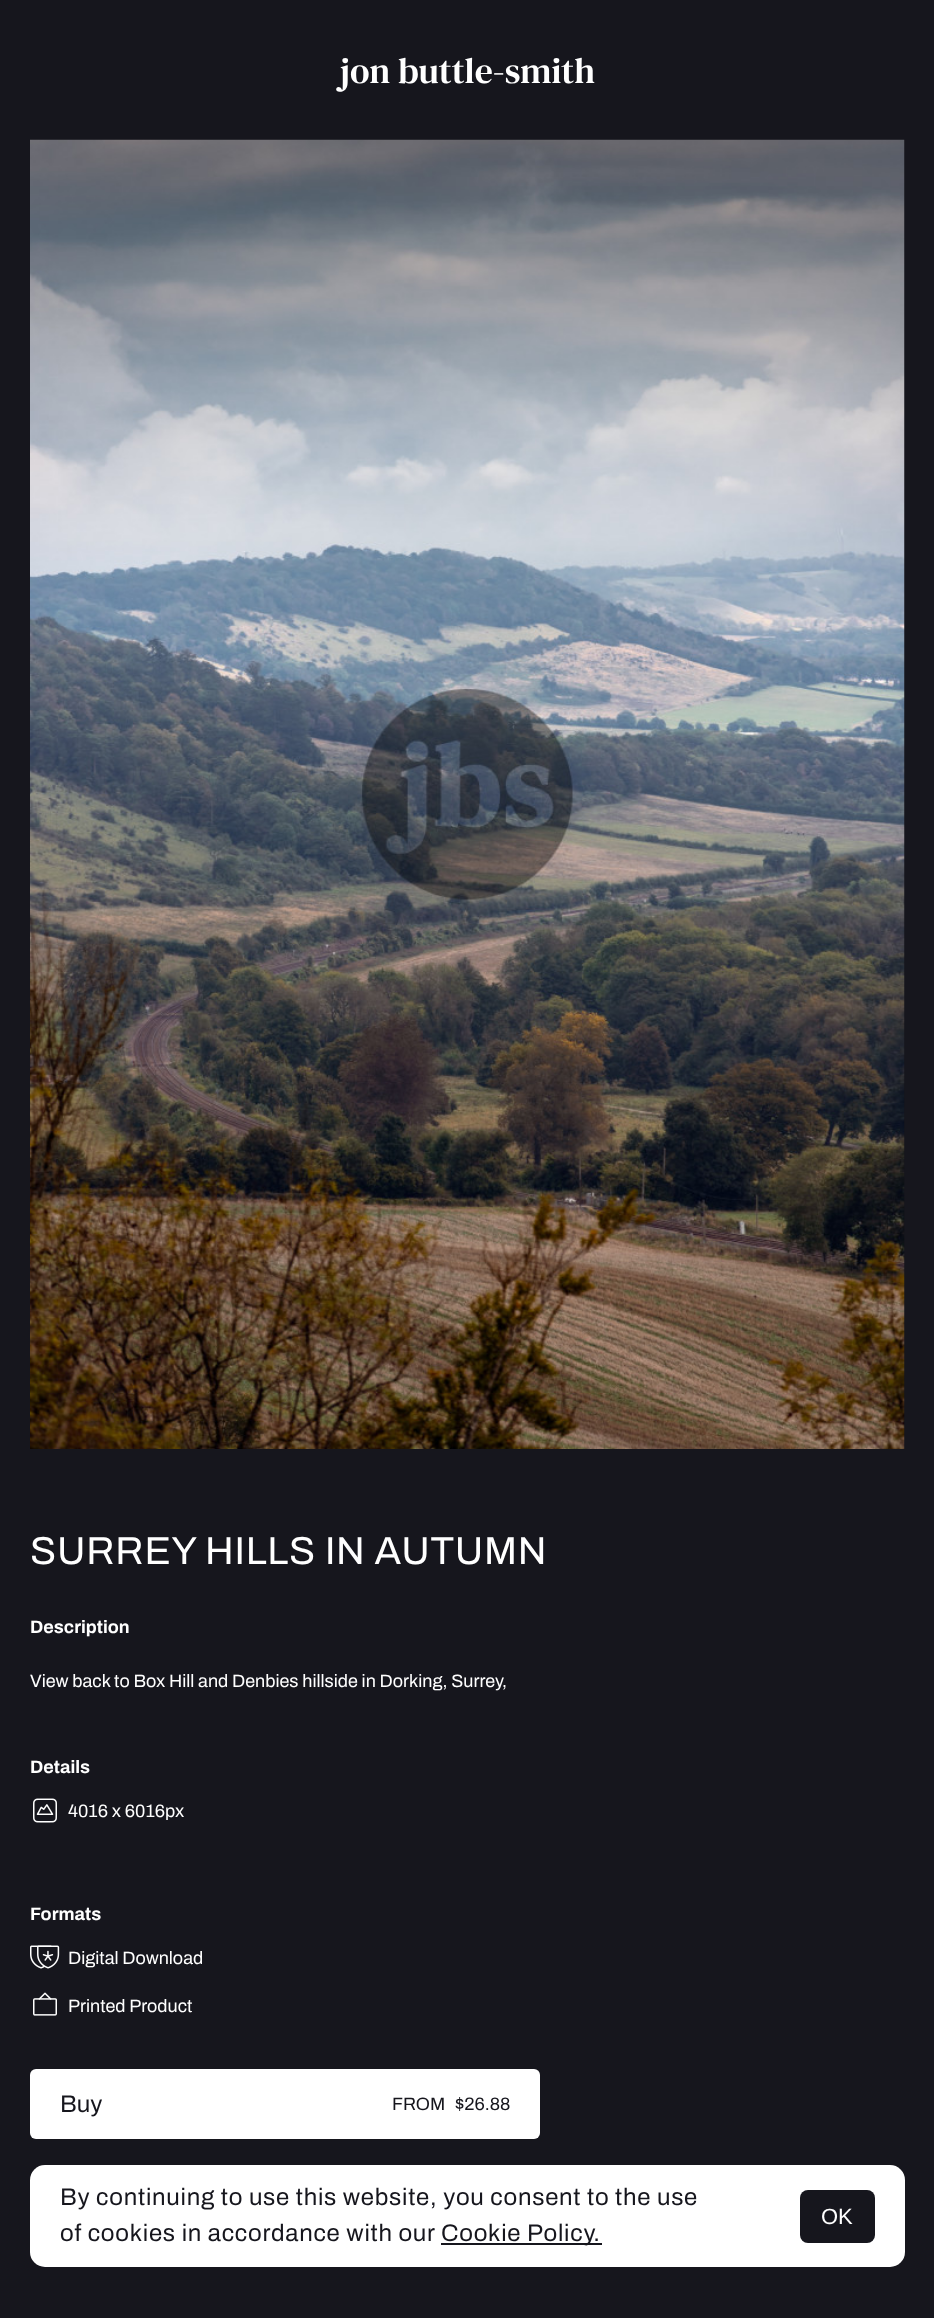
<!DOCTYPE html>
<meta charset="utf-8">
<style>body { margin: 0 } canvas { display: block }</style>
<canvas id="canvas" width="934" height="2318"></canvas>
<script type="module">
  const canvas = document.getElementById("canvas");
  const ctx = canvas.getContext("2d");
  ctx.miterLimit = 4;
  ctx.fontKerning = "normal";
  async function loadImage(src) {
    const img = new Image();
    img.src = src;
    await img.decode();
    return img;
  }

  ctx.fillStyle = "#16161d";
  ctx.fillRect(0, 0, 934, 2318);
  ctx.font = "36px DM Serif Text";
  ctx.fillStyle = "#ffffff";
  ctx.fillText("jon buttle-smith", 340, 83);
  ctx.drawImage(await loadImage("img1.png"), 30, 139, 875, 1310);
  ctx.letterSpacing = "0.75px";
  ctx.font = "39px Archivo";
  ctx.fillText("SURREY HILLS IN AUTUMN", 30, 1564);
  ctx.letterSpacing = "0px";
  ctx.font = "bold 18px Archivo";
  ctx.fillText("Description", 30, 1633);
  ctx.font = "18px Archivo";
  ctx.fillText("View back to Box Hill and Denbies hillside in Dorking, Surrey,", 30, 1687);
  ctx.font = "bold 18px Archivo";
  ctx.fillText("Details", 30, 1773);
  ctx.drawImage(await loadImage("img2.png"), 33, 1798, 24, 25);
  ctx.font = "18px Archivo";
  ctx.fillText("4016 x 6016px", 68, 1817);
  ctx.font = "bold 18px Archivo";
  ctx.fillText("Formats", 30, 1920);
  ctx.drawImage(await loadImage("img3.png"), 30, 1945, 30, 24);
  ctx.font = "18px Archivo";
  ctx.fillText("Digital Download", 68, 1964);
  ctx.drawImage(await loadImage("img4.png"), 33, 1992, 24, 24);
  ctx.fillText("Printed Product", 68, 2012);
  ctx.beginPath();
  ctx.roundRect(30, 2069, 510, 70, 6);
  ctx.fill();
  ctx.font = "24px Archivo";
  ctx.fillStyle = "#16161d";
  ctx.fillText("Buy", 60, 2112);
  ctx.font = "18px Archivo";
  ctx.fillText("FROM", 392, 2110);
  ctx.fillText("$26.88", 455, 2110);
  ctx.fillStyle = "#ffffff";
  ctx.beginPath();
  ctx.roundRect(30, 2165, 875, 102, 15);
  ctx.fill();
  ctx.letterSpacing = "0.75px";
  ctx.font = "24px Archivo";
  ctx.fillStyle = "#16161d";
  ctx.fillText("By continuing to use this website, you consent to the use", 60, 2205);
  ctx.fillText("of cookies in accordance with our", 60, 2241);
  ctx.fillRect(441, 2243, 161, 2);
  ctx.fillText("Cookie Policy.", 441, 2241);
  ctx.beginPath();
  ctx.roundRect(800, 2190, 75, 53, 8);
  ctx.fill();
  ctx.letterSpacing = "0px";
  ctx.font = "22px Liberation Sans";
  ctx.fillStyle = "#ffffff";
  ctx.fillText("OK", 821, 2224);
</script>
